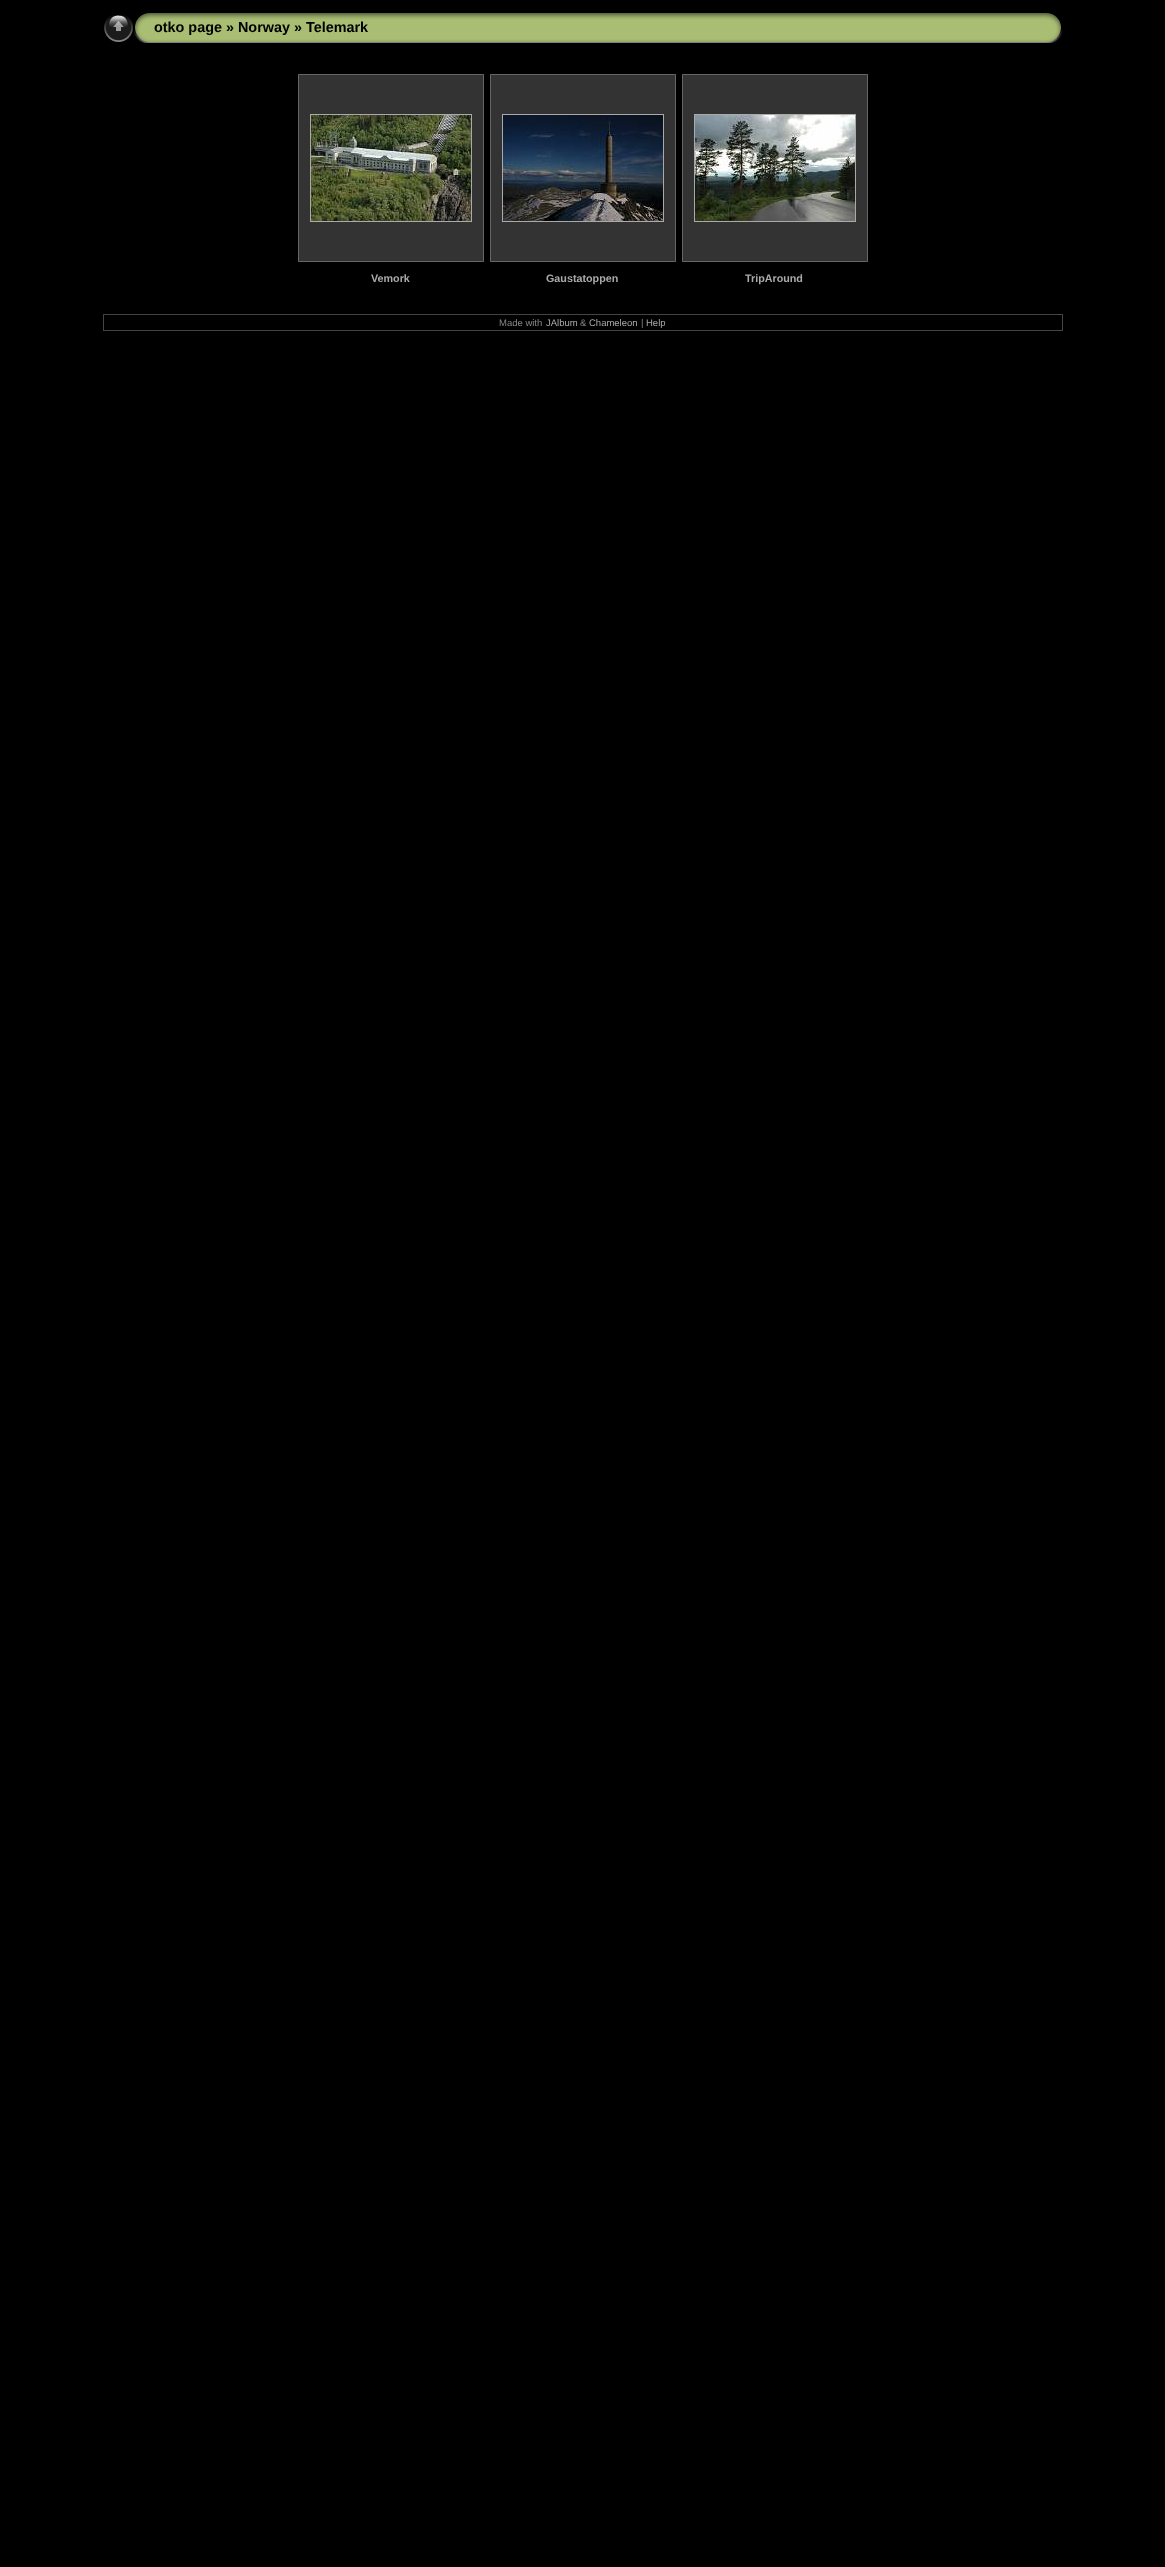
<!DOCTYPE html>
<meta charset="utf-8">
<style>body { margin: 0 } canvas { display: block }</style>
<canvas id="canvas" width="1165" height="2567"></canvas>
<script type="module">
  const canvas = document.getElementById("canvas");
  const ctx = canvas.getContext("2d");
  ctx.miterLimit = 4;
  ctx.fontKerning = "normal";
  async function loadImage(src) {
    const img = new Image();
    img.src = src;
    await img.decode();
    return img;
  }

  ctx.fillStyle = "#000000";
  ctx.fillRect(0, 0, 1165, 2567);
  ctx.drawImage(await loadImage("img1.png"), 104, 15, 29, 27);
  ctx.drawImage(await loadImage("img2.png"), 134, 13, 20, 30);
  ctx.drawImage(await loadImage("img3.png"), 154, 13, 889, 30);
  ctx.font = "bold 14.4px Liberation Sans";
  ctx.fillText("otko page » Norway » Telemark", 154, 32);
  ctx.drawImage(await loadImage("img4.png"), 1043, 13, 20, 30);
  ctx.fillStyle = "#333333";
  ctx.beginPath();
  ctx.rect(298.5, 74.5, 185, 187);
  ctx.fill();
  ctx.strokeStyle = "#666666";
  ctx.stroke();
  ctx.strokeStyle = "#aaaaaa";
  ctx.strokeRect(310.5, 114.5, 161, 107);
  ctx.drawImage(await loadImage("img5.png"), 311, 115, 160, 106);
  ctx.font = "bold 10.75px Liberation Sans";
  ctx.fillStyle = "#aaaaaa";
  ctx.fillText("Vemork", 371, 282);
  ctx.fillStyle = "#333333";
  ctx.beginPath();
  ctx.rect(490.5, 74.5, 185, 187);
  ctx.fill();
  ctx.strokeStyle = "#666666";
  ctx.stroke();
  ctx.strokeStyle = "#aaaaaa";
  ctx.strokeRect(502.5, 114.5, 161, 107);
  ctx.drawImage(await loadImage("img6.png"), 503, 115, 160, 106);
  ctx.fillStyle = "#aaaaaa";
  ctx.fillText("Gaustatoppen", 546, 282);
  ctx.fillStyle = "#333333";
  ctx.beginPath();
  ctx.rect(682.5, 74.5, 185, 187);
  ctx.fill();
  ctx.strokeStyle = "#666666";
  ctx.stroke();
  ctx.strokeStyle = "#aaaaaa";
  ctx.strokeRect(694.5, 114.5, 161, 107);
  ctx.drawImage(await loadImage("img7.png"), 695, 115, 160, 106);
  ctx.fillStyle = "#aaaaaa";
  ctx.fillText("TripAround", 745, 282);
  ctx.fillStyle = "#444444";
  ctx.fillRect(103, 314, 960, 1);
  ctx.fillRect(1062, 314, 1, 17);
  ctx.fillRect(103, 330, 960, 1);
  ctx.fillRect(103, 314, 1, 17);
  ctx.font = "9.5px Liberation Sans";
  ctx.fillStyle = "#888888";
  ctx.fillText("Made with", 499, 326);
  ctx.fillStyle = "#aaaaaa";
  ctx.fillText("JAlbum", 546, 326);
  ctx.fillStyle = "#888888";
  ctx.fillText("&", 580, 326);
  ctx.fillStyle = "#aaaaaa";
  ctx.fillText("Chameleon", 589, 326);
  ctx.fillStyle = "#888888";
  ctx.fillText("|", 641, 326);
  ctx.fillStyle = "#aaaaaa";
  ctx.fillText("Help", 646, 326);
</script>
